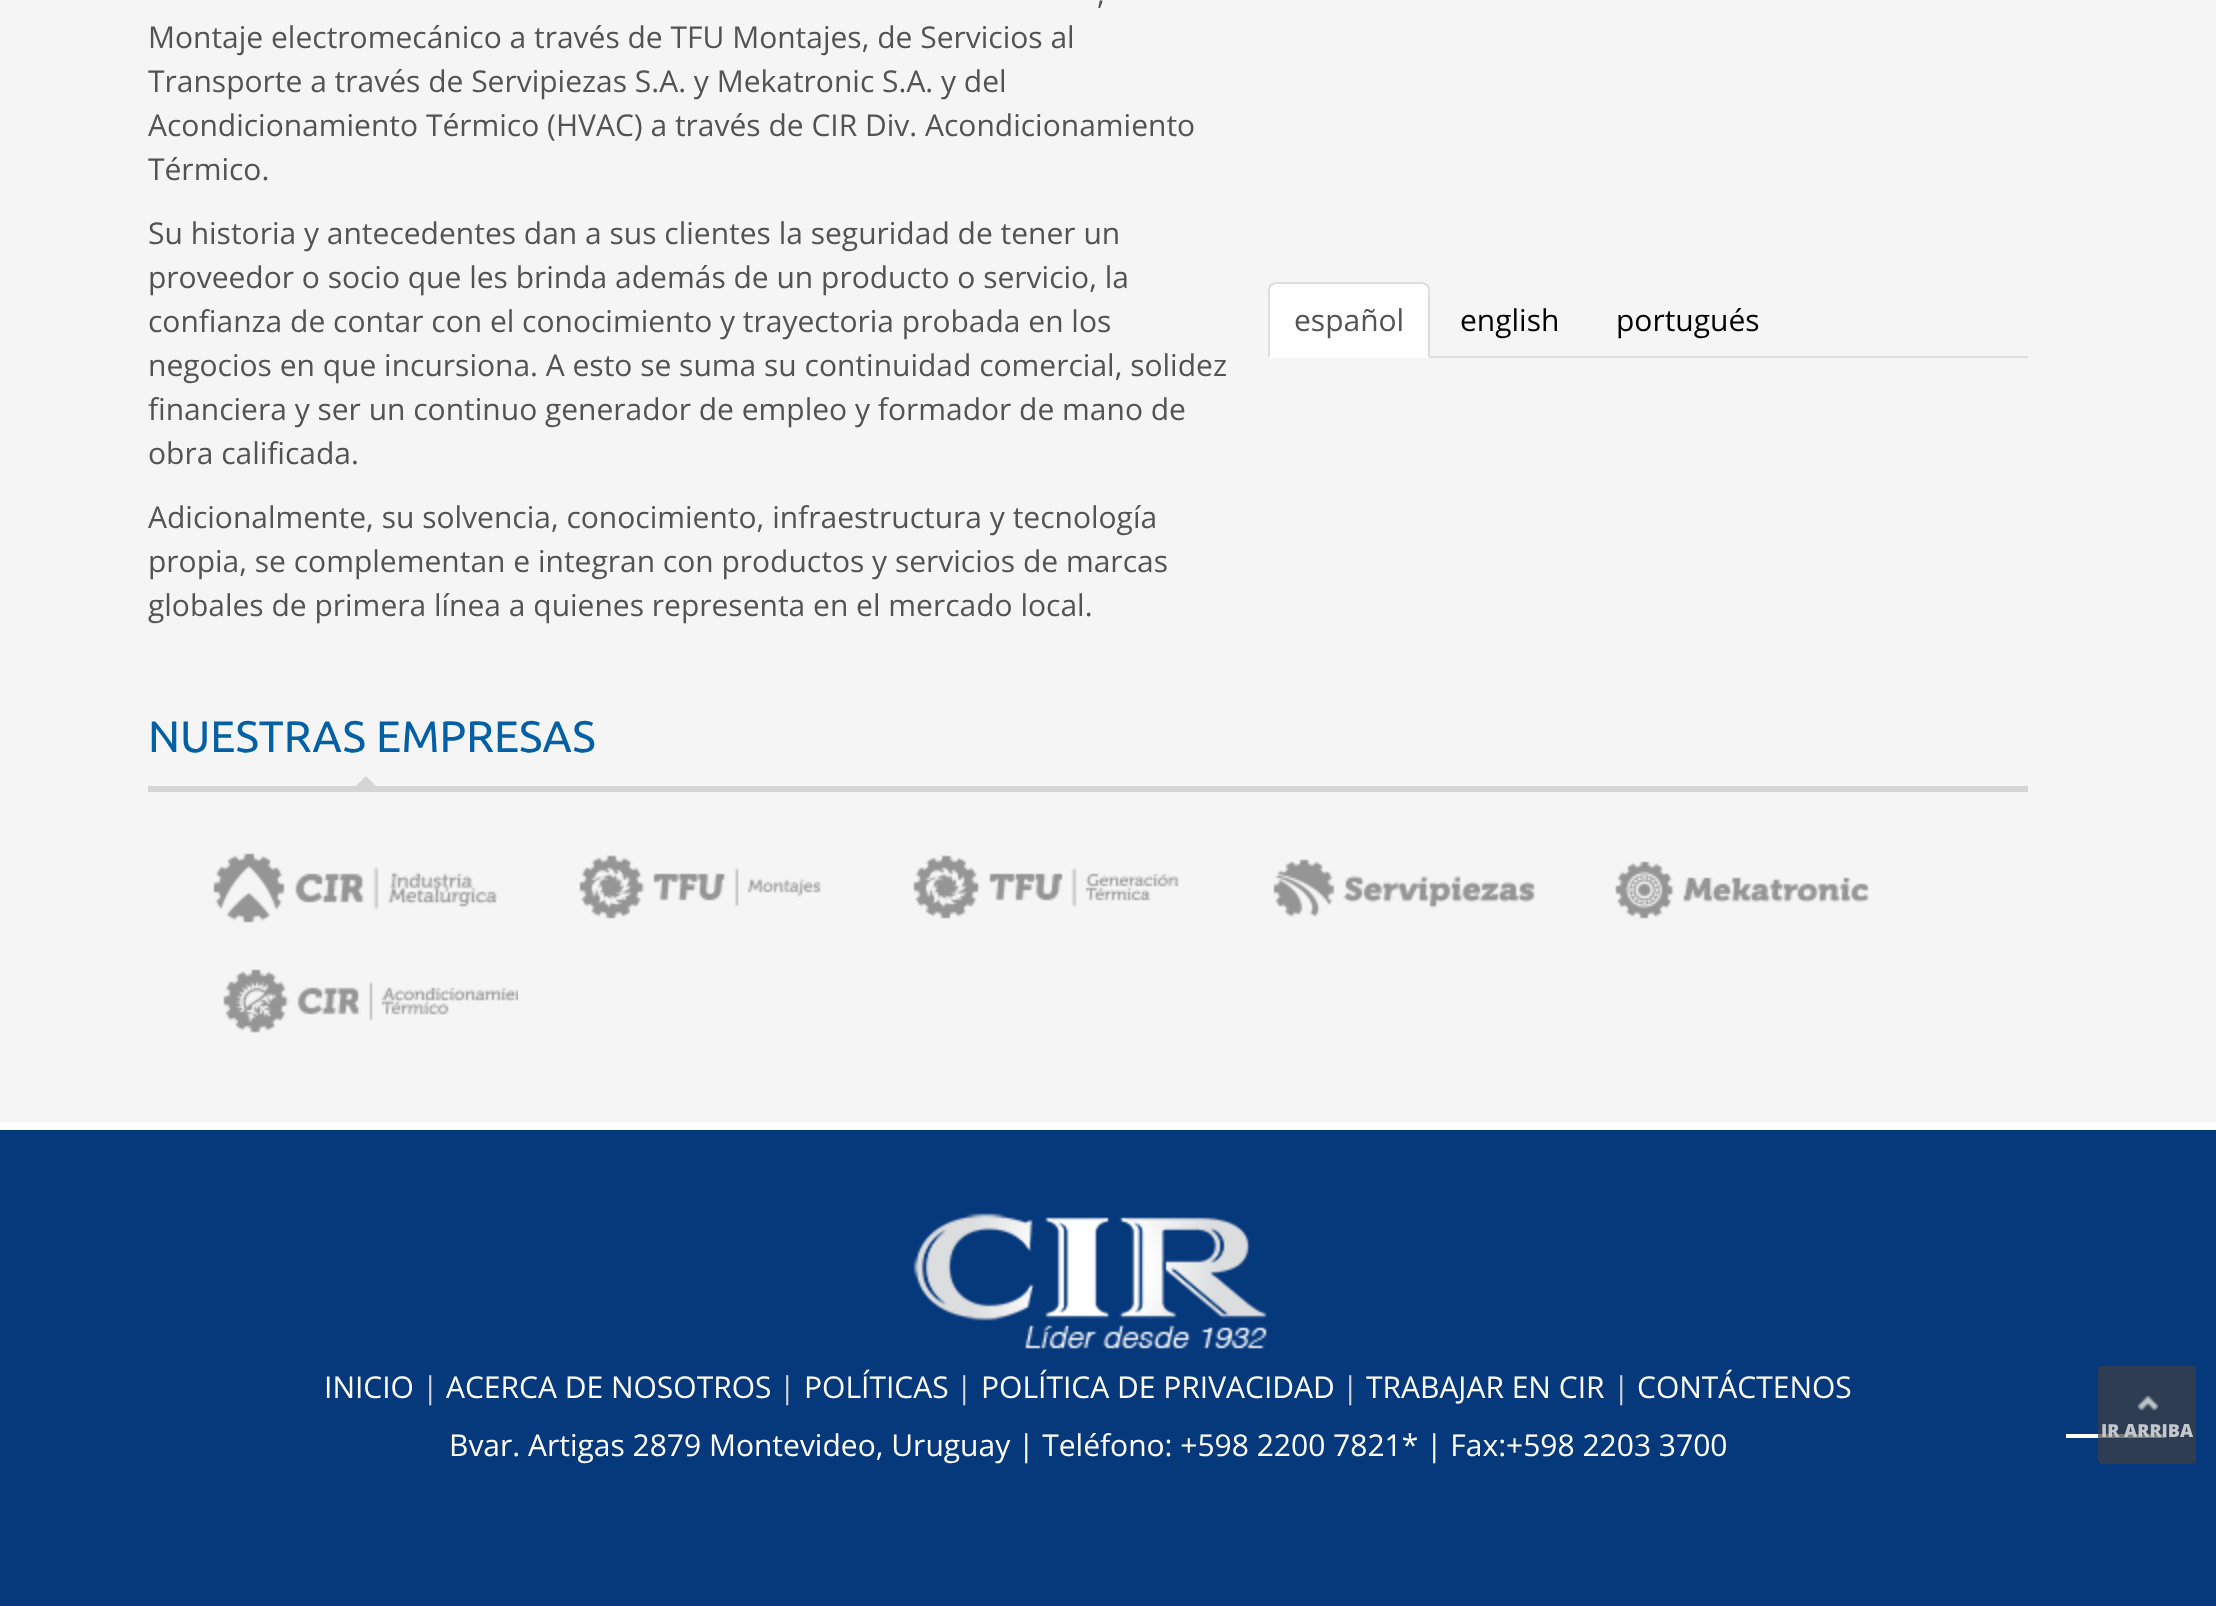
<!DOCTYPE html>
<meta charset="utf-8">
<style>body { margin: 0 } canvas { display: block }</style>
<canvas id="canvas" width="2216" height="1606"></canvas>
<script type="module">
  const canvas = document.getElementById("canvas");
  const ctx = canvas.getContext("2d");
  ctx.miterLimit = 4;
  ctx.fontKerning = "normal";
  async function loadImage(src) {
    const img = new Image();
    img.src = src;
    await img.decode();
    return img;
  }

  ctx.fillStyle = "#f5f5f5";
  ctx.fillRect(0, 0, 2216, 1606);
  ctx.font = "30px Open Sans";
  ctx.fillStyle = "#535353";
  ctx.fillText(",", 1097, 4);
  ctx.fillText("Montaje electromecánico a través de TFU Montajes, de Servicios al", 148, 48);
  ctx.fillText("Transporte a través de Servipiezas S.A. y Mekatronic S.A. y del", 148, 92);
  ctx.fillText("Acondicionamiento Térmico (HVAC) a través de CIR Div. Acondicionamiento", 148, 136);
  ctx.fillText("Térmico.", 148, 180);
  ctx.fillText("Su historia y antecedentes dan a sus clientes la seguridad de tener un", 148, 244);
  ctx.fillText("proveedor o socio que les brinda además de un producto o servicio, la", 148, 288);
  ctx.fillText("confianza de contar con el conocimiento y trayectoria probada en los", 148, 332);
  ctx.fillText("negocios en que incursiona. A esto se suma su continuidad comercial, solidez", 148, 376);
  ctx.fillText("financiera y ser un continuo generador de empleo y formador de mano de", 148, 420);
  ctx.fillText("obra calificada.", 148, 464);
  ctx.fillText("Adicionalmente, su solvencia, conocimiento, infraestructura y tecnología", 148, 528);
  ctx.fillText("propia, se complementan e integran con productos y servicios de marcas", 148, 572);
  ctx.fillText("globales de primera línea a quienes representa en el mercado local.", 148, 616);
  ctx.fillStyle = "#dddddd";
  ctx.fillRect(1430, 356, 598, 2);
  ctx.fillStyle = "#ffffff";
  ctx.beginPath();
  ctx.roundRect(1268, 282, 162, 76, [8, 8, 0, 0]);
  ctx.fill();
  ctx.fillStyle = "#dddddd";
  ctx.beginPath();
  ctx.moveTo(1276, 282);
  ctx.bezierCurveTo(1274, 282, 1272, 283, 1270, 284);
  ctx.lineTo(1272, 286);
  ctx.lineTo(1275, 284);
  ctx.lineTo(1423, 284);
  ctx.lineTo(1426, 286);
  ctx.lineTo(1428, 284);
  ctx.bezierCurveTo(1426, 283, 1424, 282, 1422, 282);
  ctx.closePath();
  ctx.fill();
  ctx.beginPath();
  ctx.moveTo(1430, 358);
  ctx.lineTo(1430, 290);
  ctx.bezierCurveTo(1430, 288, 1429, 286, 1428, 284);
  ctx.lineTo(1426, 286);
  ctx.bezierCurveTo(1427, 287, 1428, 288, 1428, 290);
  ctx.lineTo(1428, 356);
  ctx.closePath();
  ctx.fill();
  ctx.beginPath();
  ctx.moveTo(1268, 358);
  ctx.lineTo(1270, 356);
  ctx.lineTo(1270, 290);
  ctx.bezierCurveTo(1270, 288, 1271, 287, 1272, 286);
  ctx.lineTo(1270, 284);
  ctx.bezierCurveTo(1269, 286, 1268, 288, 1268, 290);
  ctx.closePath();
  ctx.fill();
  ctx.fillStyle = "#535353";
  ctx.fillText("español", 1294, 331);
  ctx.fillStyle = "#000000";
  ctx.fillText("english", 1460, 331);
  ctx.fillText("portugués", 1616, 331);
  ctx.fillStyle = "#d5d5d5";
  ctx.fillRect(148, 786, 1880, 6);
  ctx.font = "44px Ubuntu";
  ctx.fillStyle = "#0460a5";
  ctx.fillText("NUESTRAS EMPRESAS", 148, 752);
  ctx.fillStyle = "#d5d5d5";
  ctx.beginPath();
  ctx.moveTo(376, 786);
  ctx.lineTo(356, 786);
  ctx.lineTo(366, 776);
  ctx.closePath();
  ctx.fill();
  ctx.drawImage(await loadImage("img1.png"), 213, 853, 284, 70);
  ctx.drawImage(await loadImage("img2.png"), 579, 855, 242, 64);
  ctx.drawImage(await loadImage("img3.png"), 913, 855, 266, 64);
  ctx.drawImage(await loadImage("img4.png"), 1273, 859, 262, 58);
  ctx.drawImage(await loadImage("img5.png"), 1615, 861, 254, 58);
  ctx.drawImage(await loadImage("img6.png"), 223, 969, 295, 64);
  ctx.fillStyle = "#06387c";
  ctx.fillRect(0, 1130, 2216, 476);
  ctx.fillStyle = "#ffffff";
  ctx.fillRect(0, 1122, 2216, 8);
  ctx.drawImage(await loadImage("img7.png"), 913, 1213, 354, 136);
  ctx.font = "30px Open Sans";
  ctx.fillText("INICIO", 324, 1398);
  ctx.fillStyle = "#d5d5d5";
  ctx.fillText("|", 422, 1398);
  ctx.fillStyle = "#ffffff";
  ctx.fillText("ACERCA DE NOSOTROS", 446, 1398);
  ctx.fillStyle = "#d5d5d5";
  ctx.fillText("|", 779, 1398);
  ctx.fillStyle = "#ffffff";
  ctx.fillText("POLÍTICAS", 804, 1398);
  ctx.fillStyle = "#d5d5d5";
  ctx.fillText("|", 956, 1398);
  ctx.fillStyle = "#ffffff";
  ctx.fillText("POLÍTICA DE PRIVACIDAD", 981, 1398);
  ctx.fillStyle = "#d5d5d5";
  ctx.fillText("|", 1342, 1398);
  ctx.fillStyle = "#ffffff";
  ctx.fillText("TRABAJAR EN CIR", 1366, 1398);
  ctx.fillStyle = "#d5d5d5";
  ctx.fillText("|", 1613, 1398);
  ctx.fillStyle = "#ffffff";
  ctx.fillText("CONTÁCTENOS", 1637, 1398);
  ctx.fillText("Bvar. Artigas 2879 Montevideo, Uruguay | Teléfono: +598 2200 7821* | Fax:+598 2203 3700", 449, 1456);
  ctx.fillRect(2066, 1434, 100, 4);
  ctx.fillStyle = "rgba(64, 64, 64, 0.7)";
  ctx.beginPath();
  ctx.roundRect(2098, 1366, 98, 98, 4);
  ctx.fill();
  ctx.drawImage(await loadImage("img8.png"), 2138, 1396, 20, 14);
  ctx.font = "800 18px Open Sans";
  ctx.fillStyle = "#c4c8cd";
  ctx.fillText("IR ARRIBA", 2101, 1437);
</script>
